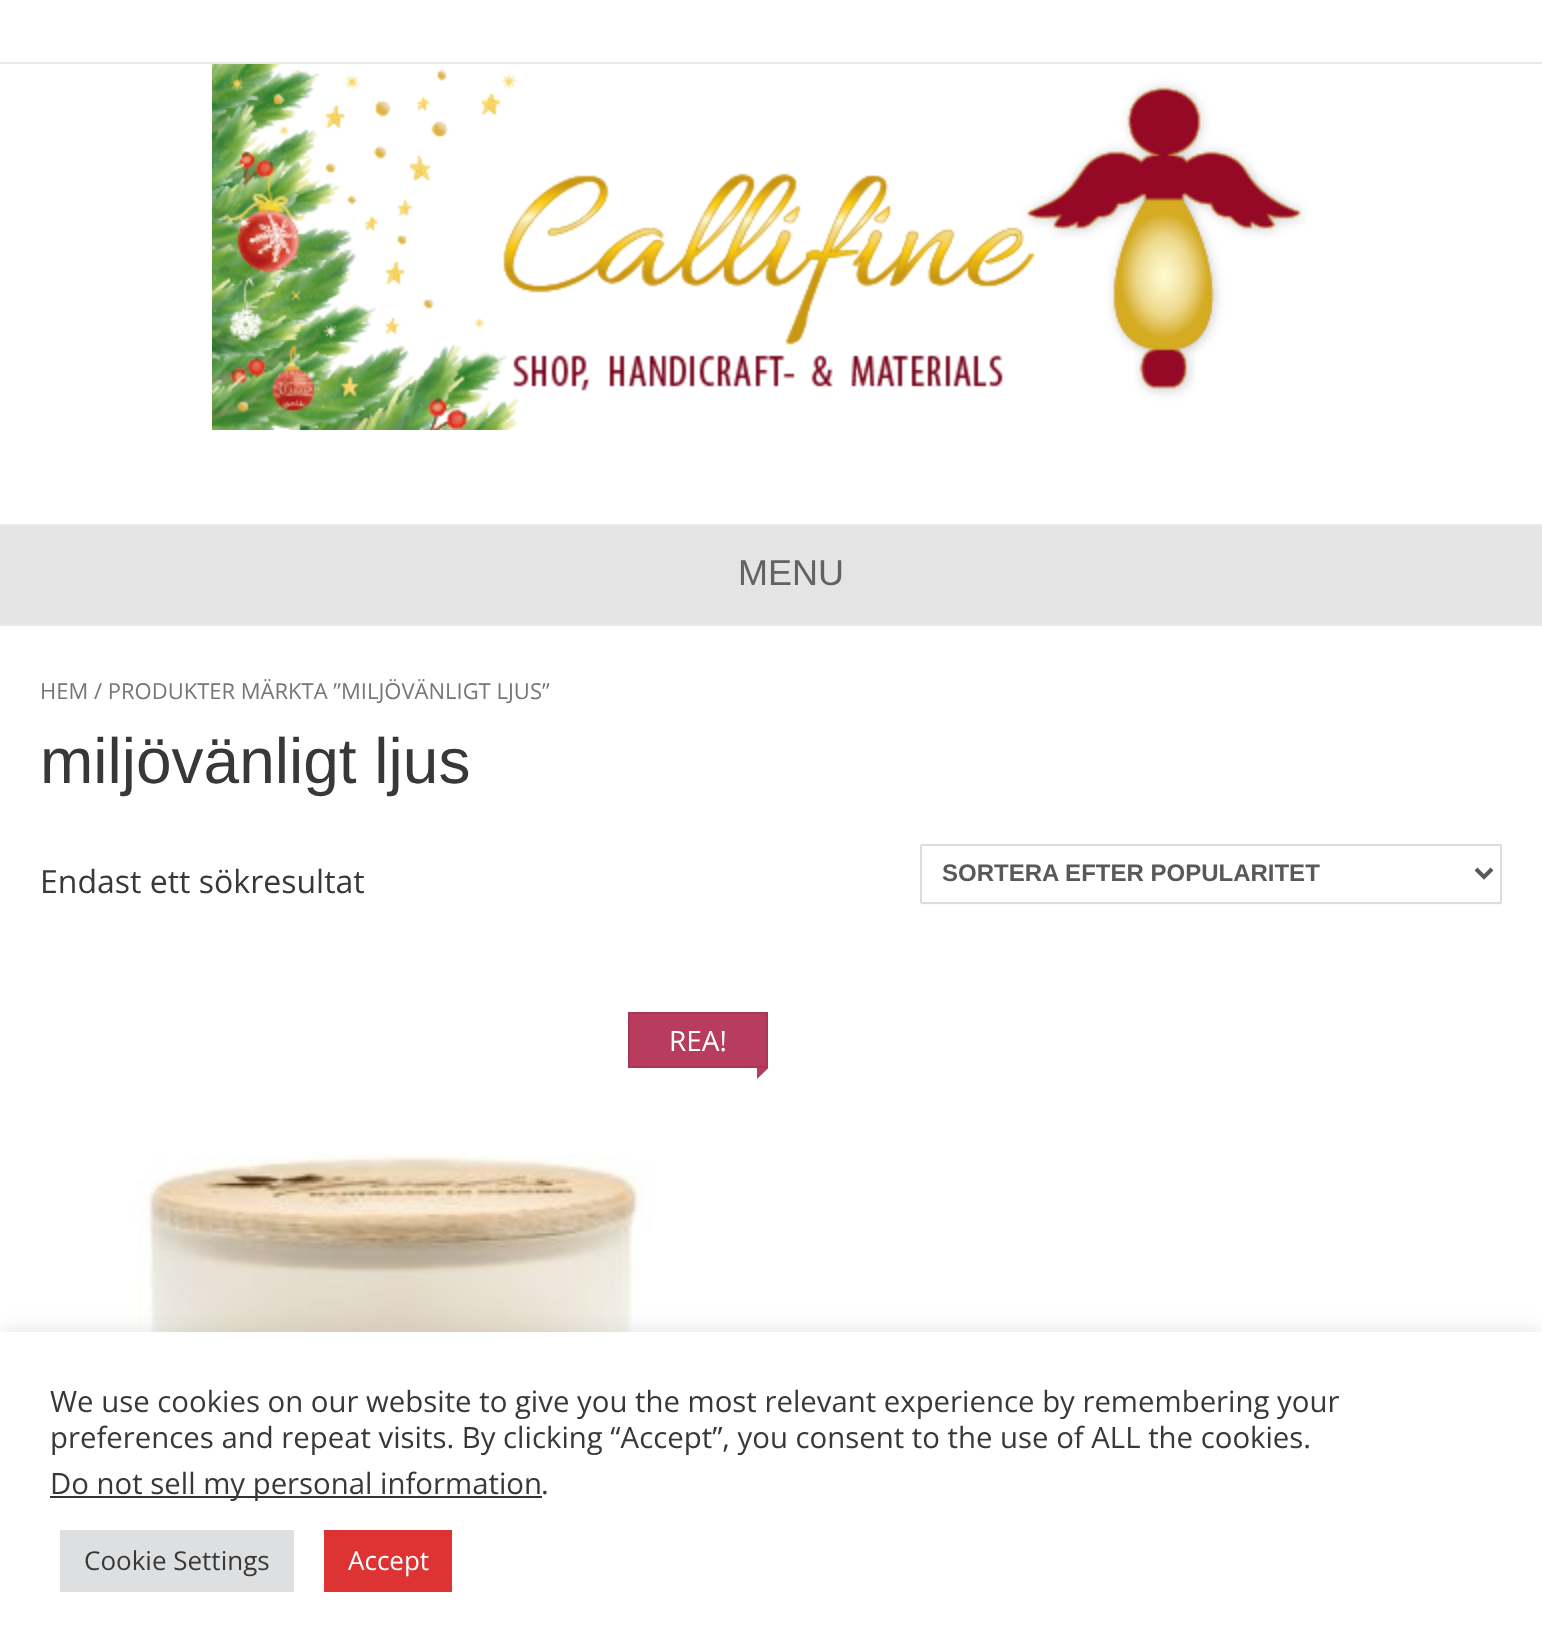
<!DOCTYPE html>
<meta charset="utf-8">
<style>body { margin: 0 } canvas { display: block }</style>
<canvas id="canvas" width="1542" height="1652"></canvas>
<script type="module">
  const canvas = document.getElementById("canvas");
  const ctx = canvas.getContext("2d");
  ctx.miterLimit = 4;
  ctx.fontKerning = "normal";
  async function loadImage(src) {
    const img = new Image();
    img.src = src;
    await img.decode();
    return img;
  }

  ctx.fillStyle = "#ffffff";
  ctx.fillRect(0, 0, 1542, 1652);
  ctx.fillStyle = "#ebebeb";
  ctx.fillRect(0, 624, 1542, 2);
  ctx.fillRect(0, 62, 1542, 2);
  ctx.drawImage(await loadImage("img1.png"), 212, 64, 1095, 366);
  ctx.fillRect(0, 524, 1542, 2);
  ctx.fillStyle = "#e4e4e4";
  ctx.fillRect(0, 526, 1542, 98);
  ctx.font = "36px Liberation Sans";
  ctx.fillStyle = "#626262";
  ctx.fillText("MENU", 738, 585);
  ctx.font = "22px Open Sans";
  ctx.fillStyle = "#767676";
  ctx.fillText("HEM", 40, 699);
  ctx.fillText("/ PRODUKTER MÄRKTA ”MILJÖVÄNLIGT LJUS”", 94, 699);
  ctx.font = "64px Liberation Sans";
  ctx.fillStyle = "#383838";
  ctx.fillText("miljövänligt ljus", 40, 783);
  ctx.font = "32px Open Sans";
  ctx.fillText("Endast ett sökresultat", 40, 893);
  ctx.fillStyle = "#fafafa";
  ctx.beginPath();
  ctx.moveTo(920, 902);
  ctx.bezierCurveTo(920, 904, 920, 906, 922, 906);
  ctx.lineTo(1500, 906);
  ctx.lineTo(1502, 905);
  ctx.lineTo(1502, 902);
  ctx.bezierCurveTo(1502, 903, 1501, 904, 1500, 904);
  ctx.lineTo(922, 904);
  ctx.bezierCurveTo(921, 904, 920, 903, 920, 902);
  ctx.closePath();
  ctx.fill();
  ctx.beginPath();
  ctx.roundRect(921, 845, 580, 58, 1);
  ctx.strokeStyle = "#dcdcdc";
  ctx.lineWidth = 2;
  ctx.stroke();
  ctx.beginPath();
  ctx.moveTo(1476, 869);
  ctx.lineTo(1484, 877);
  ctx.lineTo(1492, 869);
  ctx.strokeStyle = "#595959";
  ctx.lineWidth = 4;
  ctx.stroke();
  ctx.font = "bold 24px Liberation Sans";
  ctx.fillStyle = "#595959";
  ctx.fillText("SORTERA EFTER POPULARITET", 942, 881);
  ctx.fillStyle = "#b73c5d";
  ctx.beginPath();
  ctx.rect(629, 1013, 138, 54);
  ctx.fill();
  ctx.strokeStyle = "#a83756";
  ctx.lineWidth = 2;
  ctx.stroke();
  ctx.font = "28px Open Sans";
  ctx.fillStyle = "#ffffff";
  ctx.fillText("REA!", 669, 1051);
  ctx.fillStyle = "#b73c5d";
  ctx.beginPath();
  ctx.moveTo(768.5, 1068);
  ctx.lineTo(757, 1079);
  ctx.lineTo(757, 1068);
  ctx.closePath();
  ctx.fill();
  ctx.drawImage(await loadImage("img2.png"), 125, 1154, 526, 178);
  ctx.fillStyle = "rgba(172, 171, 171, 0.3)";
  ctx.filter = "blur(10px)";
  ctx.beginPath();
  ctx.rect(0, 1330, 1542, 320);
  ctx.fill();
  ctx.filter = "none";
  ctx.fillStyle = "#ffffff";
  ctx.fillRect(0, 1332, 1542, 320);
  ctx.font = "29.35px Open Sans";
  ctx.fillStyle = "#383838";
  ctx.fillText("We use cookies on our website to give you the most relevant experience by remembering your", 50, 1412);
  ctx.fillText("preferences and repeat visits. By clicking “Accept”, you consent to the use of ALL the cookies.", 50, 1448);
  ctx.fillStyle = "#333333";
  ctx.fillRect(50, 1496, 492, 2);
  ctx.fillStyle = "#383838";
  ctx.fillText("Do not sell my personal information", 50, 1494);
  ctx.fillText(".", 541, 1494);
  ctx.fillStyle = "#dedfe0";
  ctx.fillRect(60, 1530, 234, 62);
  ctx.font = "26px Open Sans";
  ctx.fillStyle = "#383838";
  ctx.fillText("Cookie Settings", 84, 1570);
  ctx.fillStyle = "#dd3333";
  ctx.fillRect(324, 1530, 128, 62);
  ctx.fillStyle = "#ffffff";
  ctx.fillText("Accept", 348, 1570);
</script>
